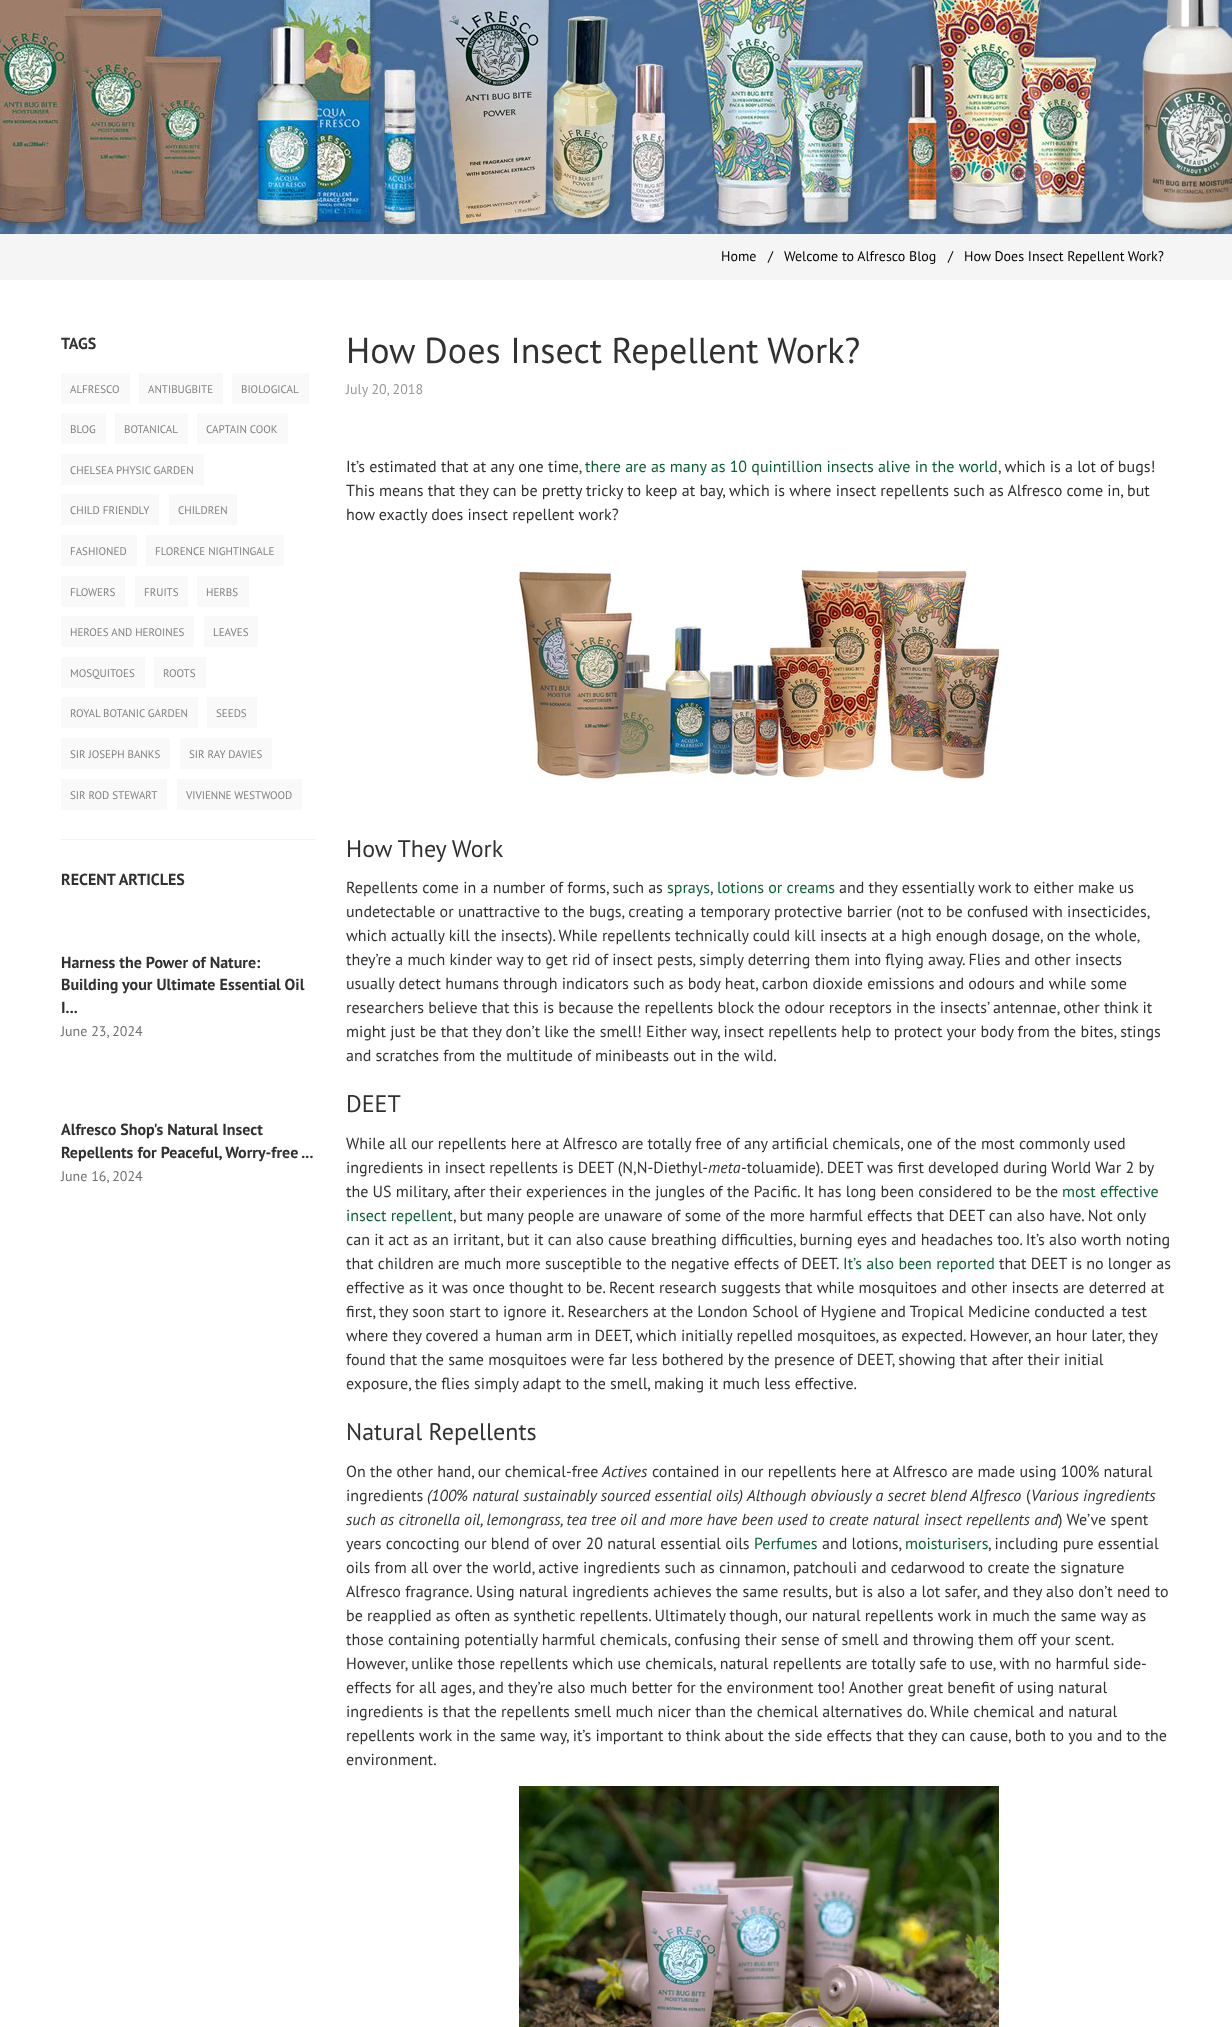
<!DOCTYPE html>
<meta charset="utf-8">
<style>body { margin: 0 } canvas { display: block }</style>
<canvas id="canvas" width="1232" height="2027"></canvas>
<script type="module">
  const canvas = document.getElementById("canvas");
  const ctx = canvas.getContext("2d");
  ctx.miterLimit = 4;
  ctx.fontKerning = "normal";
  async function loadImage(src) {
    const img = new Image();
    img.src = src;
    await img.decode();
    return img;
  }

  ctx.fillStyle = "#ffffff";
  ctx.fillRect(0, 0, 1232, 2027);
  ctx.drawImage(await loadImage("img1.png"), 0, 0, 1232, 234);
  ctx.fillStyle = "#f5f5f5";
  ctx.fillRect(0, 234, 1232, 46);
  ctx.font = "14px PT Sans";
  ctx.fillStyle = "#000000";
  ctx.fillText("Home", 721, 261);
  ctx.fillText("/", 768, 261);
  ctx.fillText("Welcome to Alfresco Blog", 784, 261);
  ctx.fillText("/", 948, 261);
  ctx.fillText("How Does Insect Repellent Work?", 964, 261);
  ctx.fillStyle = "#f3f3f3";
  ctx.fillRect(61, 839, 255, 1);
  ctx.font = "bold 16px PT Sans";
  ctx.fillStyle = "#313131";
  ctx.fillText("TAGS", 61, 349);
  ctx.fillStyle = "#f9f9f9";
  ctx.fillRect(61, 373, 69, 31);
  ctx.font = "11px PT Sans";
  ctx.fillStyle = "#818181";
  ctx.fillText("ALFRESCO", 70, 393);
  ctx.fillStyle = "#f9f9f9";
  ctx.fillRect(139, 373, 84, 31);
  ctx.fillStyle = "#818181";
  ctx.fillText("ANTIBUGBITE", 148, 393);
  ctx.fillStyle = "#f9f9f9";
  ctx.fillRect(232, 373, 77, 31);
  ctx.fillStyle = "#818181";
  ctx.fillText("BIOLOGICAL", 241, 393);
  ctx.fillStyle = "#f9f9f9";
  ctx.fillRect(61, 413, 45, 31);
  ctx.fillStyle = "#818181";
  ctx.fillText("BLOG", 70, 433);
  ctx.fillStyle = "#f9f9f9";
  ctx.fillRect(115, 413, 73, 31);
  ctx.fillStyle = "#818181";
  ctx.fillText("BOTANICAL", 124, 433);
  ctx.fillStyle = "#f9f9f9";
  ctx.fillRect(197, 413, 91, 31);
  ctx.fillStyle = "#818181";
  ctx.fillText("CAPTAIN COOK", 206, 433);
  ctx.fillStyle = "#f9f9f9";
  ctx.fillRect(61, 454, 143, 31);
  ctx.fillStyle = "#818181";
  ctx.fillText("CHELSEA PHYSIC GARDEN", 70, 474);
  ctx.fillStyle = "#f9f9f9";
  ctx.fillRect(61, 494, 98, 31);
  ctx.fillStyle = "#818181";
  ctx.fillText("CHILD FRIENDLY", 70, 514);
  ctx.fillStyle = "#f9f9f9";
  ctx.fillRect(169, 494, 68, 31);
  ctx.fillStyle = "#818181";
  ctx.fillText("CHILDREN", 178, 514);
  ctx.fillStyle = "#f9f9f9";
  ctx.fillRect(61, 535, 76, 31);
  ctx.fillStyle = "#818181";
  ctx.fillText("FASHIONED", 70, 555);
  ctx.fillStyle = "#f9f9f9";
  ctx.fillRect(146, 535, 138, 31);
  ctx.fillStyle = "#818181";
  ctx.fillText("FLORENCE NIGHTINGALE", 155, 555);
  ctx.fillStyle = "#f9f9f9";
  ctx.fillRect(61, 576, 64, 31);
  ctx.fillStyle = "#818181";
  ctx.fillText("FLOWERS", 70, 596);
  ctx.fillStyle = "#f9f9f9";
  ctx.fillRect(135, 576, 53, 31);
  ctx.fillStyle = "#818181";
  ctx.fillText("FRUITS", 144, 596);
  ctx.fillStyle = "#f9f9f9";
  ctx.fillRect(197, 576, 52, 31);
  ctx.fillStyle = "#818181";
  ctx.fillText("HERBS", 206, 596);
  ctx.fillStyle = "#f9f9f9";
  ctx.fillRect(61, 616, 133, 31);
  ctx.fillStyle = "#818181";
  ctx.fillText("HEROES AND HEROINES", 70, 636);
  ctx.fillStyle = "#f9f9f9";
  ctx.fillRect(204, 616, 54, 31);
  ctx.fillStyle = "#818181";
  ctx.fillText("LEAVES", 213, 636);
  ctx.fillStyle = "#f9f9f9";
  ctx.fillRect(61, 657, 84, 31);
  ctx.fillStyle = "#818181";
  ctx.fillText("MOSQUITOES", 70, 677);
  ctx.fillStyle = "#f9f9f9";
  ctx.fillRect(154, 657, 52, 31);
  ctx.fillStyle = "#818181";
  ctx.fillText("ROOTS", 163, 677);
  ctx.fillStyle = "#f9f9f9";
  ctx.fillRect(61, 697, 137, 31);
  ctx.fillStyle = "#818181";
  ctx.fillText("ROYAL BOTANIC GARDEN", 70, 717);
  ctx.fillStyle = "#f9f9f9";
  ctx.fillRect(207, 697, 50, 31);
  ctx.fillStyle = "#818181";
  ctx.fillText("SEEDS", 216, 717);
  ctx.fillStyle = "#f9f9f9";
  ctx.fillRect(61, 738, 109, 31);
  ctx.fillStyle = "#818181";
  ctx.fillText("SIR JOSEPH BANKS", 70, 758);
  ctx.fillStyle = "#f9f9f9";
  ctx.fillRect(180, 738, 92, 31);
  ctx.fillStyle = "#818181";
  ctx.fillText("SIR RAY DAVIES", 189, 758);
  ctx.fillStyle = "#f9f9f9";
  ctx.fillRect(61, 779, 106, 31);
  ctx.fillStyle = "#818181";
  ctx.fillText("SIR ROD STEWART", 70, 799);
  ctx.fillStyle = "#f9f9f9";
  ctx.fillRect(177, 779, 125, 31);
  ctx.fillStyle = "#818181";
  ctx.fillText("VIVIENNE WESTWOOD", 186, 799);
  ctx.font = "bold 16px PT Sans";
  ctx.fillStyle = "#313131";
  ctx.fillText("RECENT ARTICLES", 61, 885);
  ctx.fillText("Harness the Power of Nature:", 61, 968);
  ctx.fillText("Building your Ultimate Essential Oil", 61, 990);
  ctx.fillText("I...", 61, 1013);
  ctx.font = "14px PT Sans";
  ctx.fillStyle = "#707070";
  ctx.fillText("June 23, 2024", 61, 1036);
  ctx.font = "bold 16px PT Sans";
  ctx.fillStyle = "#313131";
  ctx.fillText("Alfresco Shop's Natural Insect", 61, 1135);
  ctx.fillText("Repellents for Peaceful, Worry-free ...", 61, 1158);
  ctx.font = "14px PT Sans";
  ctx.fillStyle = "#707070";
  ctx.fillText("June 16, 2024", 61, 1181);
  ctx.font = "36px PT Sans";
  ctx.fillStyle = "#313131";
  ctx.fillText("How Does Insect Repellent Work?", 346, 363);
  ctx.font = "14px PT Sans";
  ctx.fillStyle = "#989898";
  ctx.fillText("July 20, 2018", 346, 394);
  ctx.font = "16px PT Sans";
  ctx.fillStyle = "#313131";
  ctx.fillText("It’s estimated that at any one time,", 346, 472);
  ctx.fillStyle = "#0c6134";
  ctx.fillText("there are as many as 10 quintillion insects alive in the world", 585, 472);
  ctx.fillStyle = "#313131";
  ctx.fillText(", which is a lot of bugs!", 998, 472);
  ctx.fillText("This means that they can be pretty tricky to keep at bay, which is where insect repellents such as Alfresco come in, but", 346, 496);
  ctx.fillText("how exactly does insect repellent work?", 346, 520);
  ctx.drawImage(await loadImage("img2.png"), 519, 567, 480, 214);
  ctx.font = "24px PT Sans";
  ctx.fillText("How They Work", 346, 857);
  ctx.font = "16px PT Sans";
  ctx.fillText("Repellents come in a number of forms, such as", 346, 893);
  ctx.fillStyle = "#0c6134";
  ctx.fillText("sprays", 667, 893);
  ctx.fillStyle = "#313131";
  ctx.fillText(",", 710, 893);
  ctx.fillStyle = "#0c6134";
  ctx.fillText("lotions or creams", 717, 893);
  ctx.fillStyle = "#313131";
  ctx.fillText("and they essentially work to either make us", 839, 893);
  ctx.fillText("undetectable or unattractive to the bugs, creating a temporary protective barrier (not to be confused with insecticides,", 346, 917);
  ctx.fillText("which actually kill the insects). While repellents technically could kill insects at a high enough dosage, on the whole,", 346, 941);
  ctx.fillText("they’re a much kinder way to get rid of insect pests, simply deterring them into flying away. Flies and other insects", 346, 965);
  ctx.fillText("usually detect humans through indicators such as body heat, carbon dioxide emissions and odours and while some", 346, 989);
  ctx.fillText("researchers believe that this is because the repellents block the odour receptors in the insects’ antennae, other think it", 346, 1013);
  ctx.fillText("might just be that they don’t like the smell! Either way, insect repellents help to protect your body from the bites, stings", 346, 1037);
  ctx.fillText("and scratches from the multitude of minibeasts out in the wild.", 346, 1061);
  ctx.font = "24px PT Sans";
  ctx.fillText("DEET", 346, 1112);
  ctx.font = "16px PT Sans";
  ctx.fillText("While all our repellents here at Alfresco are totally free of any artificial chemicals, one of the most commonly used", 346, 1149);
  ctx.fillText("ingredients in insect repellents is DEET (N,N-Diethyl-", 346, 1173);
  ctx.font = "italic 16px PT Sans";
  ctx.fillText("meta", 708, 1173);
  ctx.font = "16px PT Sans";
  ctx.fillText("-toluamide). DEET was first developed during World War 2 by", 741, 1173);
  ctx.fillText("the US military, after their experiences in the jungles of the Pacific. It has long been considered to be the", 346, 1197);
  ctx.fillStyle = "#0c6134";
  ctx.fillText("most effective", 1062, 1197);
  ctx.fillText("insect repellent", 346, 1221);
  ctx.fillStyle = "#313131";
  ctx.fillText(", but many people are unaware of some of the more harmful effects that DEET can also have. Not only", 453, 1221);
  ctx.fillText("can it act as an irritant, but it can also cause breathing difficulties, burning eyes and headaches too. It’s also worth noting", 346, 1245);
  ctx.fillText("that children are much more susceptible to the negative effects of DEET.", 346, 1269);
  ctx.fillStyle = "#0c6134";
  ctx.fillText("It’s also been reported", 843, 1269);
  ctx.fillStyle = "#313131";
  ctx.fillText("that DEET is no longer as", 999, 1269);
  ctx.fillText("effective as it was once thought to be. Recent research suggests that while mosquitoes and other insects are deterred at", 346, 1293);
  ctx.fillText("first, they soon start to ignore it. Researchers at the London School of Hygiene and Tropical Medicine conducted a test", 346, 1317);
  ctx.fillText("where they covered a human arm in DEET, which initially repelled mosquitoes, as expected. However, an hour later, they", 346, 1341);
  ctx.fillText("found that the same mosquitoes were far less bothered by the presence of DEET, showing that after their initial", 346, 1365);
  ctx.fillText("exposure, the flies simply adapt to the smell, making it much less effective.", 346, 1389);
  ctx.font = "24px PT Sans";
  ctx.fillText("Natural Repellents", 346, 1440);
  ctx.font = "16px PT Sans";
  ctx.fillText("On the other hand, our chemical-free", 346, 1477);
  ctx.font = "italic 16px PT Sans";
  ctx.fillText("Actives", 602, 1477);
  ctx.font = "16px PT Sans";
  ctx.fillText("contained in our repellents here at Alfresco are made using 100% natural", 652, 1477);
  ctx.fillText("ingredients", 346, 1501);
  ctx.font = "italic 16px PT Sans";
  ctx.fillText("(100% natural sustainably sourced essential oils) Although obviously a secret blend Alfresco", 427, 1501);
  ctx.font = "16px PT Sans";
  ctx.fillText("(", 1026, 1501);
  ctx.font = "italic 16px PT Sans";
  ctx.fillText("Various ingredients", 1031, 1501);
  ctx.fillText("such as citronella oil, lemongrass, tea tree oil and more have been used to create natural insect repellents and", 346, 1525);
  ctx.font = "16px PT Sans";
  ctx.fillText(") We’ve spent", 1058, 1525);
  ctx.fillText("years concocting our blend of over 20 natural essential oils", 346, 1549);
  ctx.fillStyle = "#0c6134";
  ctx.fillText("Perfumes", 754, 1549);
  ctx.fillStyle = "#313131";
  ctx.fillText("and lotions,", 822, 1549);
  ctx.fillStyle = "#0c6134";
  ctx.fillText("moisturisers", 905, 1549);
  ctx.fillStyle = "#313131";
  ctx.fillText(", including pure essential", 988, 1549);
  ctx.fillText("oils from all over the world, active ingredients such as cinnamon, patchouli and cedarwood to create the signature", 346, 1573);
  ctx.fillText("Alfresco fragrance. Using natural ingredients achieves the same results, but is also a lot safer, and they also don’t need to", 346, 1597);
  ctx.fillText("be reapplied as often as synthetic repellents. Ultimately though, our natural repellents work in much the same way as", 346, 1621);
  ctx.fillText("those containing potentially harmful chemicals, confusing their sense of smell and throwing them off your scent.", 346, 1645);
  ctx.fillText("However, unlike those repellents which use chemicals, natural repellents are totally safe to use, with no harmful side-", 346, 1669);
  ctx.fillText("effects for all ages, and they’re also much better for the environment too! Another great benefit of using natural", 346, 1693);
  ctx.fillText("ingredients is that the repellents smell much nicer than the chemical alternatives do. While chemical and natural", 346, 1717);
  ctx.fillText("repellents work in the same way, it’s important to think about the side effects that they can cause, both to you and to the", 346, 1741);
  ctx.fillText("environment.", 346, 1765);
  ctx.drawImage(await loadImage("img3.png"), 519, 1786, 480, 241);
</script>
